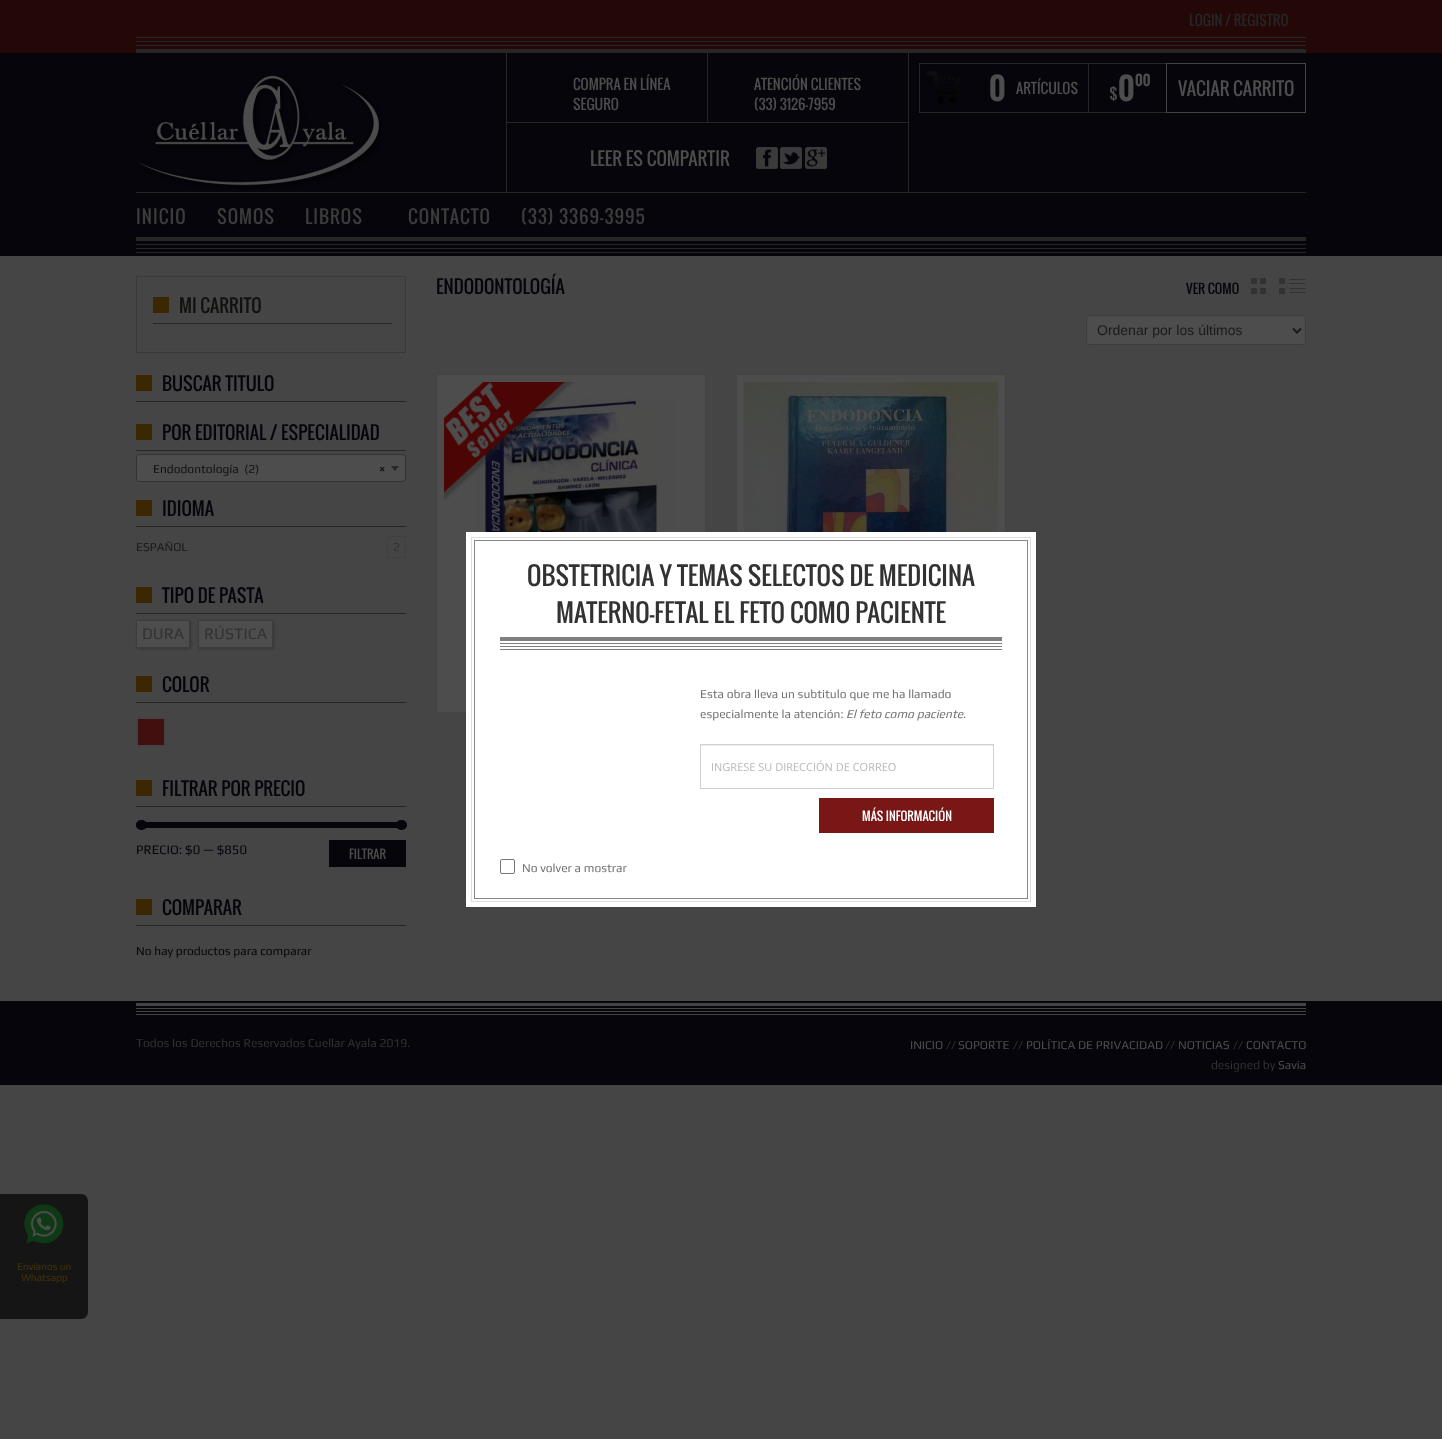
<!DOCTYPE html>
<meta charset="utf-8">
<style>body { margin: 0 } canvas { display: block }</style>
<canvas id="canvas" width="1442" height="1439"></canvas>
<script type="module">
  const canvas = document.getElementById("canvas");
  const ctx = canvas.getContext("2d");
  ctx.miterLimit = 4;
  ctx.fontKerning = "normal";
  async function loadImage(src) {
    const img = new Image();
    img.src = src;
    await img.decode();
    return img;
  }

  ctx.fillStyle = "#464545";
  ctx.fillRect(0, 0, 1442, 1439);
  ctx.fillStyle = "#240707";
  ctx.fillRect(0, 0, 1442, 53);
  ctx.font = "14px Oswald";
  ctx.fillStyle = "#262626";
  ctx.fillText("LOGIN / REGISTRO", 1189, 26);
  ctx.fillRect(136, 37, 1170, 1);
  ctx.fillRect(136, 41, 1170, 1);
  ctx.fillRect(136, 45, 1170, 1);
  ctx.fillRect(136, 49, 1170, 4);
  ctx.fillStyle = "#06050c";
  ctx.fillRect(0, 53, 1442, 203);
  ctx.drawImage(await loadImage("img1.png"), 140, 75, 244, 115);
  ctx.strokeStyle = "#262626";
  ctx.strokeRect(506.5, 52.5, 201, 70);
  ctx.fillStyle = "#4d4d4d";
  ctx.fillText("COMPRA EN LÍNEA", 573, 90);
  ctx.fillText("SEGURO", 573, 110);
  ctx.strokeRect(707.5, 52.5, 201, 70);
  ctx.fillText("ATENCIÓN CLIENTES", 754, 90);
  ctx.fillText("(33) 3126-7959", 754, 110);
  ctx.fillStyle = "#262626";
  ctx.fillRect(136, 192, 1170, 1);
  ctx.strokeRect(506.5, 122.5, 402, 70);
  ctx.font = "18px Oswald";
  ctx.fillStyle = "#4d4d4d";
  ctx.fillText("LEER ES COMPARTIR", 590, 166);
  ctx.drawImage(await loadImage("img2.png"), 756, 147, 22, 22);
  ctx.drawImage(await loadImage("img3.png"), 780, 147, 22, 22);
  ctx.drawImage(await loadImage("img4.png"), 805, 147, 22, 22);
  ctx.drawImage(await loadImage("img5.png"), 927, 71, 34, 32);
  ctx.strokeRect(919.5, 63.5, 169, 49);
  ctx.font = "bold 30px Oswald";
  ctx.fillText("0", 989, 101);
  ctx.font = "14px Oswald";
  ctx.fillText("ARTÍCULOS", 1016, 94);
  ctx.strokeRect(1088.5, 63.5, 78, 49);
  ctx.font = "15px Oswald";
  ctx.fillText("$", 1109, 100);
  ctx.font = "bold 30px Oswald";
  ctx.fillText("0", 1118, 101);
  ctx.font = "bold 14px Oswald";
  ctx.fillText("00", 1135, 86);
  ctx.strokeStyle = "#434343";
  ctx.strokeRect(1166.5, 63.5, 139, 49);
  ctx.font = "18px Oswald";
  ctx.fillText("VACIAR CARRITO", 1178, 96);
  ctx.letterSpacing = "1px";
  ctx.fillStyle = "#3c3c3c";
  ctx.fillText("INICIO", 136, 224);
  ctx.fillText("SOMOS", 217, 224);
  ctx.fillText("LIBROS", 305, 224);
  ctx.fillText("CONTACTO", 408, 224);
  ctx.fillText("(33) 3369-3995", 521, 224);
  ctx.fillStyle = "#262626";
  ctx.fillRect(136, 237, 1170, 4);
  ctx.fillRect(136, 244, 1170, 1);
  ctx.fillRect(136, 248, 1170, 1);
  ctx.fillRect(136, 252, 1170, 1);
  ctx.strokeStyle = "#383837";
  ctx.strokeRect(136.5, 276.5, 269, 76);
  ctx.strokeStyle = "#434141";
  ctx.strokeRect(139.5, 279.5, 263, 70);
  ctx.fillRect(153, 323, 239, 1);
  ctx.fillStyle = "#3b2802";
  ctx.fillRect(153, 297, 16, 16);
  ctx.letterSpacing = "0px";
  ctx.fillStyle = "#111110";
  ctx.fillText("MI CARRITO", 179, 313);
  ctx.fillStyle = "#262626";
  ctx.fillRect(136, 401, 270, 1);
  ctx.fillStyle = "#3b2802";
  ctx.fillRect(136, 375, 16, 16);
  ctx.fillStyle = "#06050c";
  ctx.fillText("BUSCAR TITULO", 162, 391);
  ctx.fillStyle = "#262626";
  ctx.fillRect(136, 450, 270, 1);
  ctx.fillStyle = "#3b2802";
  ctx.fillRect(136, 424, 16, 16);
  ctx.fillStyle = "#06050c";
  ctx.fillText("POR EDITORIAL / ESPECIALIDAD", 162, 440);
  ctx.fillStyle = "#4d4d4d";
  ctx.beginPath();
  ctx.roundRect(136.5, 454.5, 269, 27, 3.5);
  ctx.fill();
  ctx.strokeStyle = "#333333";
  ctx.stroke();
  ctx.font = "12px Play";
  ctx.fillStyle = "#111110";
  ctx.fillText("Endodontología  (2)", 153, 473);
  ctx.font = "bold 12px Play";
  ctx.fillText("×", 379, 473);
  ctx.fillStyle = "#292929";
  ctx.beginPath();
  ctx.moveTo(391, 466);
  ctx.lineTo(399, 466);
  ctx.lineTo(395, 471);
  ctx.closePath();
  ctx.fill();
  ctx.fillStyle = "#262626";
  ctx.fillRect(136, 526, 270, 1);
  ctx.fillStyle = "#3b2802";
  ctx.fillRect(136, 500, 16, 16);
  ctx.font = "18px Oswald";
  ctx.fillStyle = "#06050c";
  ctx.fillText("IDIOMA", 162, 516);
  ctx.font = "12px Play";
  ctx.fillStyle = "#1a1a1a";
  ctx.fillText("ESPAÑOL", 136, 551);
  ctx.strokeStyle = "#413f3f";
  ctx.strokeRect(387.5, 536.5, 18, 21);
  ctx.fillStyle = "#323232";
  ctx.fillText("2", 393, 551);
  ctx.fillStyle = "#262626";
  ctx.fillRect(136, 613, 270, 1);
  ctx.fillStyle = "#3b2802";
  ctx.fillRect(136, 587, 16, 16);
  ctx.font = "18px Oswald";
  ctx.fillStyle = "#06050c";
  ctx.fillText("TIPO DE PASTA", 162, 603);
  ctx.fillStyle = "rgba(0, 0, 0, 0.23)";
  ctx.filter = "blur(1px)";
  ctx.beginPath();
  ctx.rect(137, 621, 54, 28);
  ctx.fill();
  ctx.filter = "none";
  ctx.fillStyle = "#4d4d4d";
  ctx.beginPath();
  ctx.rect(136.5, 620.5, 53, 27);
  ctx.fill();
  ctx.strokeStyle = "#3d3c3c";
  ctx.stroke();
  ctx.font = "16px Play";
  ctx.fillStyle = "#323232";
  ctx.fillText("DURA", 142, 639);
  ctx.fillStyle = "rgba(0, 0, 0, 0.23)";
  ctx.filter = "blur(1px)";
  ctx.beginPath();
  ctx.rect(199, 621, 75, 28);
  ctx.fill();
  ctx.filter = "none";
  ctx.fillStyle = "#4d4d4d";
  ctx.beginPath();
  ctx.rect(198.5, 620.5, 74, 27);
  ctx.fill();
  ctx.stroke();
  ctx.fillStyle = "#323232";
  ctx.fillText("RÚSTICA", 204, 639);
  ctx.fillStyle = "#262626";
  ctx.fillRect(136, 702, 270, 1);
  ctx.fillStyle = "#3b2802";
  ctx.fillRect(136, 676, 16, 16);
  ctx.font = "18px Oswald";
  ctx.fillStyle = "#06050c";
  ctx.fillText("COLOR", 162, 692);
  ctx.fillStyle = "#420f0f";
  ctx.beginPath();
  ctx.roundRect(137, 718, 28, 28, 1);
  ctx.fill();
  ctx.strokeStyle = "#444343";
  ctx.lineWidth = 2;
  ctx.stroke();
  ctx.fillStyle = "#262626";
  ctx.fillRect(136, 806, 270, 1);
  ctx.fillStyle = "#3b2802";
  ctx.fillRect(136, 780, 16, 16);
  ctx.fillStyle = "#06050c";
  ctx.fillText("FILTRAR POR PRECIO", 162, 796);
  ctx.beginPath();
  ctx.roundRect(136, 822, 270, 6, 3);
  ctx.fill();
  ctx.beginPath();
  ctx.roundRect(136, 820, 11, 10, 5);
  ctx.fill();
  ctx.beginPath();
  ctx.roundRect(396, 820, 11, 10, 5);
  ctx.fill();
  ctx.font = "13px Play";
  ctx.fillText("PRECIO: $0 — $850", 136, 854);
  ctx.fillRect(329, 840, 77, 27);
  ctx.font = "12px Oswald";
  ctx.fillStyle = "#4d4d4d";
  ctx.fillText("FILTRAR", 349, 859);
  ctx.fillStyle = "#262626";
  ctx.fillRect(136, 925, 270, 1);
  ctx.fillStyle = "#3b2802";
  ctx.fillRect(136, 899, 16, 16);
  ctx.font = "18px Oswald";
  ctx.fillStyle = "#06050c";
  ctx.fillText("COMPARAR", 162, 915);
  ctx.font = "12px Play";
  ctx.fillText("No hay productos para comparar", 136, 955);
  ctx.font = "18px Oswald";
  ctx.fillText("ENDODONTOLOGÍA", 436, 294);
  ctx.fillStyle = "#434343";
  ctx.fillRect(436, 304, 870, 1);
  ctx.font = "13px Oswald";
  ctx.fillStyle = "#06050c";
  ctx.fillText("VER COMO", 1186, 294);
  ctx.drawImage(await loadImage("img6.png"), 1251, 278, 15, 16);
  ctx.drawImage(await loadImage("img7.png"), 1279, 278, 27, 16);
  ctx.fillStyle = "#4d4d4d";
  ctx.beginPath();
  ctx.roundRect(1086.5, 315.5, 219, 29, 2.5);
  ctx.fill();
  ctx.strokeStyle = "#3d3d3d";
  ctx.lineWidth = 1;
  ctx.stroke();
  ctx.beginPath();
  ctx.moveTo(1293, 328.5);
  ctx.lineTo(1297, 332.5);
  ctx.lineTo(1301, 328.5);
  ctx.strokeStyle = "#1a1a1a";
  ctx.lineWidth = 2;
  ctx.stroke();
  ctx.font = "14px Liberation Sans";
  ctx.fillStyle = "#1a1a1a";
  ctx.fillText("Ordenar por los últimos", 1097, 335);
  ctx.fillStyle = "#4d4d4d";
  ctx.beginPath();
  ctx.rect(436.5, 374.5, 269, 338);
  ctx.fill();
  ctx.strokeStyle = "#434343";
  ctx.lineWidth = 1;
  ctx.stroke();
  ctx.drawImage(await loadImage("img9.png"), 476, 398, 199, 134);
  ctx.drawImage(await loadImage("img8.png"), 444, 382, 131, 120);
  ctx.fillRect(737, 375, 268, 157);
  ctx.strokeRect(736.5, 374.5, 269, 296);
  ctx.drawImage(await loadImage("img10.png"), 744, 382, 254, 150);
  ctx.fillStyle = "#06050c";
  ctx.fillRect(0, 1001, 1442, 84);
  ctx.fillStyle = "#434343";
  ctx.fillRect(136, 1003, 1170, 3);
  ctx.fillRect(136, 1008, 1170, 1);
  ctx.fillRect(136, 1011, 1170, 1);
  ctx.fillRect(136, 1014, 1170, 1);
  ctx.font = "12px Play";
  ctx.fillStyle = "#323232";
  ctx.fillText("Todos los Derechos Reservados Cuellar Ayala 2019.", 136, 1047);
  ctx.fillStyle = "#4d4d4d";
  ctx.fillText("INICIO", 910, 1049);
  ctx.fillStyle = "#323232";
  ctx.fillText("//", 946, 1049);
  ctx.fillStyle = "#4d4d4d";
  ctx.fillText("SOPORTE", 958, 1049);
  ctx.fillStyle = "#323232";
  ctx.fillText("//", 1013, 1049);
  ctx.fillStyle = "#4d4d4d";
  ctx.fillText("POLÍTICA DE PRIVACIDAD", 1026, 1049);
  ctx.fillStyle = "#323232";
  ctx.fillText("//", 1165, 1049);
  ctx.fillStyle = "#4d4d4d";
  ctx.fillText("NOTICIAS", 1178, 1049);
  ctx.fillStyle = "#323232";
  ctx.fillText("//", 1233, 1049);
  ctx.fillStyle = "#4d4d4d";
  ctx.fillText("CONTACTO", 1246, 1049);
  ctx.fillStyle = "#323232";
  ctx.fillText("designed by", 1211, 1069);
  ctx.fillStyle = "#4d4d4d";
  ctx.fillText("Savia", 1278, 1069);
  ctx.fillStyle = "#ffffff";
  ctx.fillRect(466, 532, 570, 375);
  ctx.strokeStyle = "#dddddd";
  ctx.strokeRect(471.5, 537.5, 559, 364);
  ctx.strokeStyle = "#858585";
  ctx.strokeRect(474.5, 540.5, 553, 358);
  ctx.font = "25px Oswald";
  ctx.fillStyle = "#323232";
  ctx.fillText("OBSTETRICIA Y TEMAS SELECTOS DE MEDICINA", 527, 586);
  ctx.fillText("MATERNO-FETAL EL FETO COMO PACIENTE", 556, 623);
  ctx.fillStyle = "#808080";
  ctx.fillRect(500, 637, 502, 4);
  ctx.fillRect(500, 643, 502, 1);
  ctx.fillRect(500, 646, 502, 1);
  ctx.fillRect(500, 649, 502, 1);
  ctx.font = "12px Play";
  ctx.fillStyle = "#747373";
  ctx.fillText("Esta obra lleva un subtitulo que me ha llamado", 700, 698);
  ctx.fillText("especialmente la atención:", 700, 718);
  ctx.font = "italic 12px Play";
  ctx.fillText("El feto como paciente", 846, 718);
  ctx.font = "12px Play";
  ctx.fillText(".", 963, 718);
  ctx.fillStyle = "#ececec";
  ctx.fillRect(701, 745, 292, 1);
  ctx.strokeStyle = "#d1d1cf";
  ctx.strokeRect(700.5, 744.5, 293, 44);
  ctx.font = "11px Open Sans";
  ctx.fillStyle = "#b8b7b7";
  ctx.fillText("INGRESE SU DIRECCIÓN DE CORREO", 711, 771);
  ctx.fillStyle = "#791616";
  ctx.fillRect(819, 798, 175, 35);
  ctx.font = "12px Oswald";
  ctx.fillStyle = "#ffffff";
  ctx.fillText("MÁS INFORMACIÓN", 862, 821);
  ctx.beginPath();
  ctx.roundRect(500.5, 859.5, 14, 14, 1.5);
  ctx.strokeStyle = "#767676";
  ctx.stroke();
  ctx.font = "12px Play";
  ctx.fillStyle = "#747373";
  ctx.fillText("No volver a mostrar", 522, 872);
  ctx.fillStyle = "#151515";
  ctx.beginPath();
  ctx.roundRect(0, 1194, 88, 125, [0, 7, 7, 0]);
  ctx.fill();
  ctx.drawImage(await loadImage("img11.png"), 24, 1204, 40, 40);
  ctx.font = "bold 10px Play";
  ctx.fillStyle = "#3a2d08";
  ctx.fillText("Envíanos un", 17, 1270);
  ctx.fillText("Whatsapp", 21, 1281);
</script>
